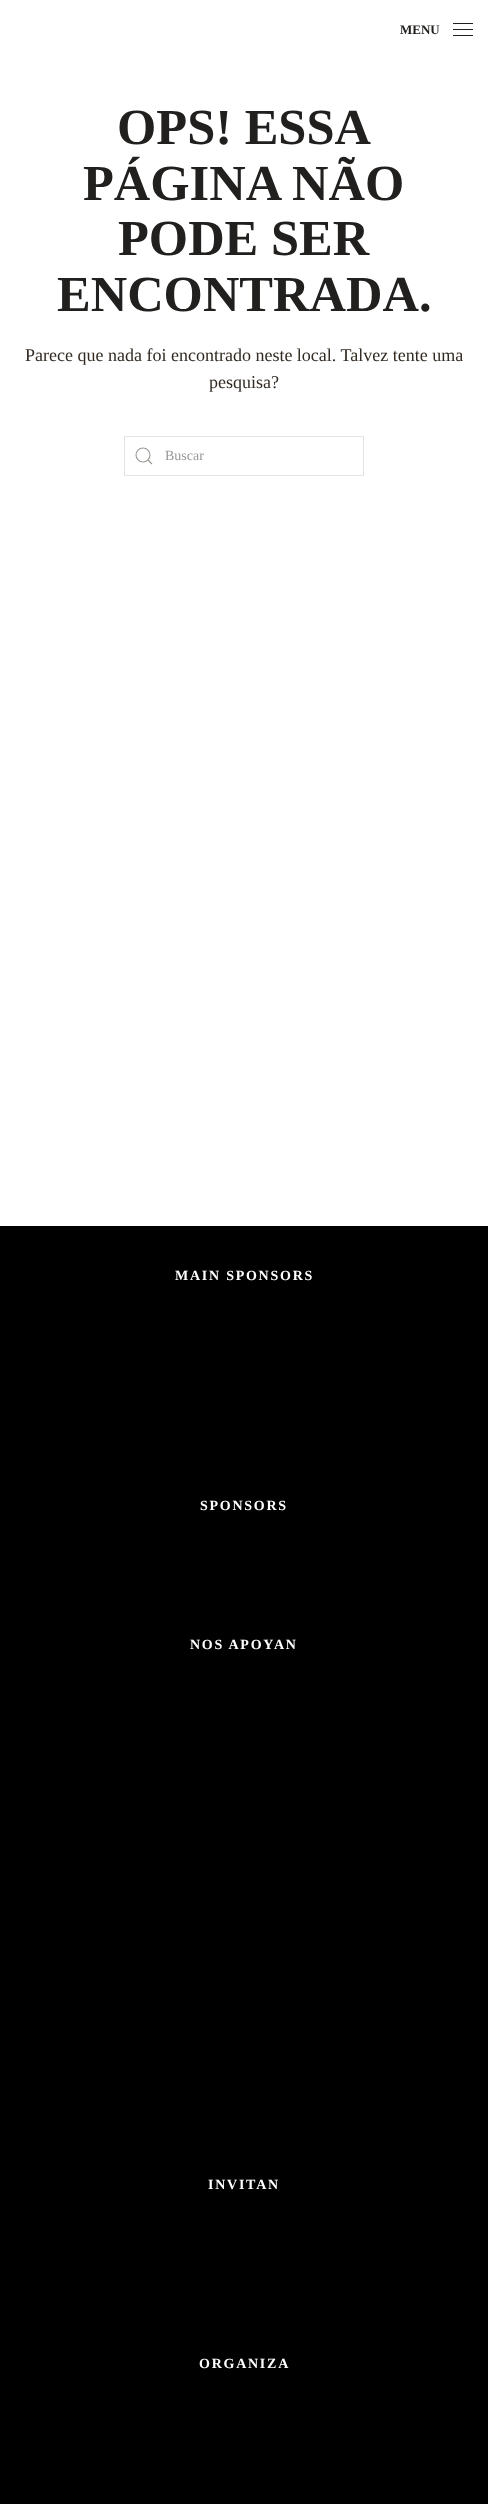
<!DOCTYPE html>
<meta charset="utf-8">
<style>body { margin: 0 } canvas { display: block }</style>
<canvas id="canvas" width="488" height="2504"></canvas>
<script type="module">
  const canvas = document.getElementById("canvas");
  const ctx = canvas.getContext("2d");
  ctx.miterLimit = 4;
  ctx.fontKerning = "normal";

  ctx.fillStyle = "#ffffff";
  ctx.fillRect(0, 0, 488, 2504);
  ctx.font = "bold 13px Liberation Serif";
  ctx.fillStyle = "#22201e";
  ctx.fillText("MENU", 400, 34);
  ctx.fillRect(453, 23, 20, 1);
  ctx.fillRect(453, 29, 20, 1);
  ctx.fillRect(453, 35, 20, 1);
  ctx.font = "bold 50.5px Liberation Serif";
  ctx.fillText("OPS! ESSA", 117, 144);
  ctx.fillText("PÁGINA NÃO", 83, 200);
  ctx.fillText("PODE SER", 118, 255);
  ctx.fillText("ENCONTRADA.", 57, 311);
  ctx.font = "18px Liberation Serif";
  ctx.fillStyle = "#322a22";
  ctx.fillText("Parece que nada foi encontrado neste local. Talvez tente uma", 25, 361);
  ctx.fillText("pesquisa?", 209, 388);
  ctx.strokeStyle = "#e6e3e1";
  ctx.strokeRect(124.5, 436.5, 239, 39);
  ctx.beginPath();
  ctx.arc(143, 455, 7, 0, Math.PI * 2);
  ctx.strokeStyle = "#9a9895";
  ctx.lineWidth = 1.1;
  ctx.stroke();
  ctx.beginPath();
  ctx.moveTo(148, 460);
  ctx.lineTo(152, 464);
  ctx.closePath();
  ctx.stroke();
  ctx.font = "14px Liberation Serif";
  ctx.fillStyle = "#9a9895";
  ctx.fillText("Buscar", 165, 460);
  ctx.fillStyle = "#000000";
  ctx.fillRect(0, 1226, 488, 1278);
  ctx.letterSpacing = "1.75px";
  ctx.font = "bold 14px Liberation Serif";
  ctx.fillStyle = "#ffffff";
  ctx.fillText("MAIN SPONSORS", 175, 1280);
  ctx.fillText("SPONSORS", 200, 1510);
  ctx.fillText("NOS APOYAN", 190, 1649);
  ctx.fillText("INVITAN", 208, 2189);
  ctx.fillText("ORGANIZA", 199, 2368);
</script>
